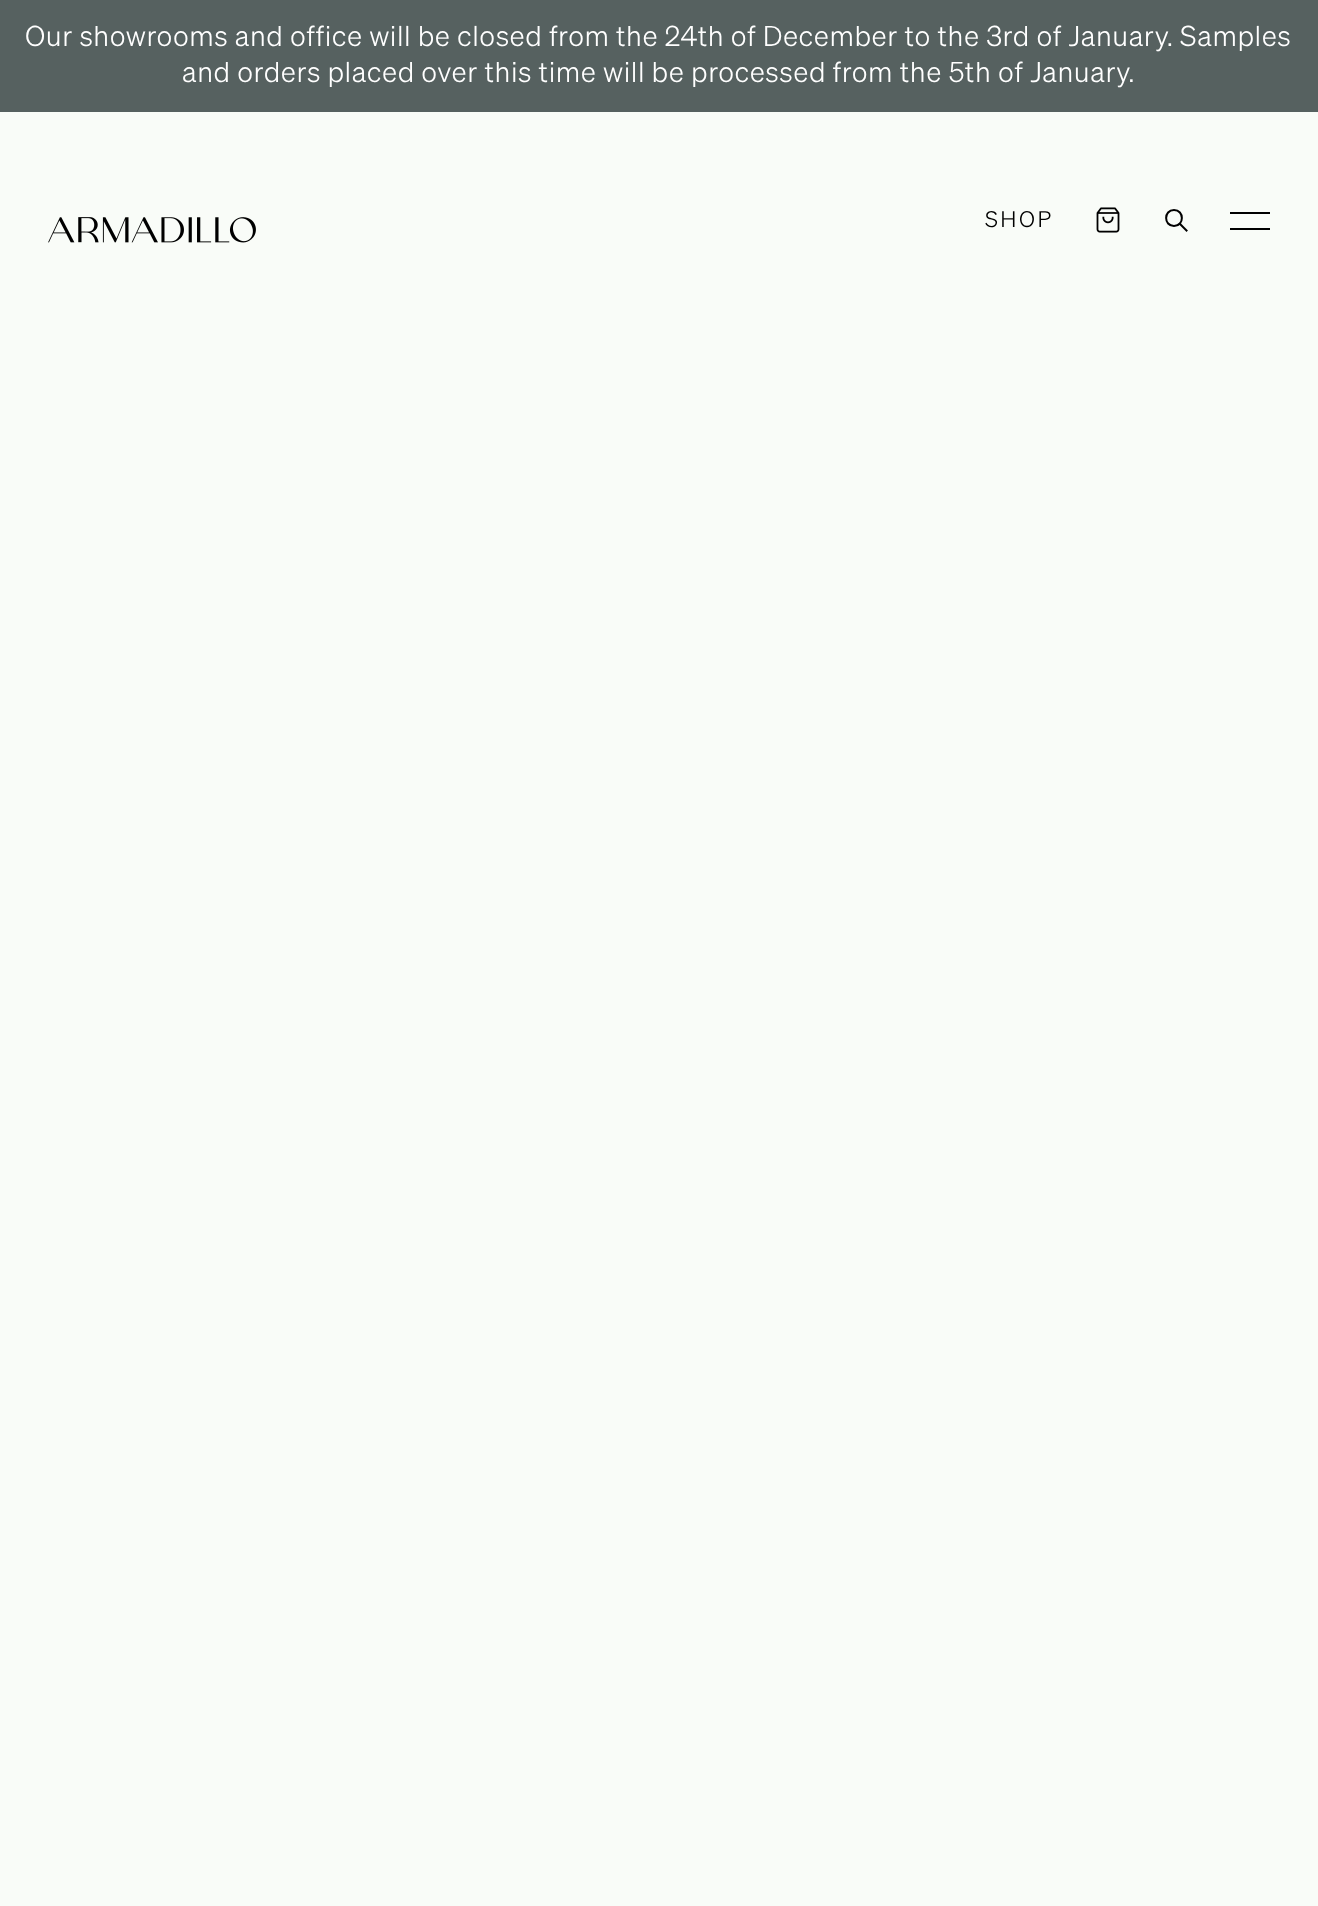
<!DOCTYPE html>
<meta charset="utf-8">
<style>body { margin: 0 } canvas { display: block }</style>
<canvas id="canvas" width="1318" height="1906"></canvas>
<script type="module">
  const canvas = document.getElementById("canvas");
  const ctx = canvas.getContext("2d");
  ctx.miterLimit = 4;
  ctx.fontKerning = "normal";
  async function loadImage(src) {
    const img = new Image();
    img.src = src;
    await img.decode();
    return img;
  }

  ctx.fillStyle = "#f9fcf8";
  ctx.fillRect(0, 0, 1318, 1906);
  ctx.fillStyle = "#566160";
  ctx.fillRect(0, 0, 1318, 112);
  ctx.letterSpacing = "0.55px";
  ctx.font = "300 28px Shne";
  ctx.fillStyle = "#ffffff";
  ctx.fillText("Our showrooms and office will be closed from the 24th of December to the 3rd of January. Samples", 25, 46);
  ctx.fillText("and orders placed over this time will be processed from the 5th of January.", 182, 82);
  ctx.drawImage(await loadImage("img1.png"), 48, 217, 208, 26);
  ctx.letterSpacing = "2.5px";
  ctx.font = "300 22px Shne";
  ctx.fillStyle = "#000000";
  ctx.fillText("SHOP", 985, 227);
  ctx.drawImage(await loadImage("img2.png"), 1096, 207, 24, 26);
  ctx.beginPath();
  ctx.moveTo(1174, 226);
  ctx.bezierCurveTo(1184.5, 226, 1184.5, 210, 1174, 210);
  ctx.bezierCurveTo(1163.5, 210, 1163.5, 226, 1174, 226);
  ctx.closePath();
  ctx.strokeStyle = "#000000";
  ctx.lineWidth = 2;
  ctx.lineCap = "round";
  ctx.lineJoin = "round";
  ctx.stroke();
  ctx.beginPath();
  ctx.moveTo(1186.5, 230.5);
  ctx.lineTo(1180, 224);
  ctx.lineCap = "square";
  ctx.stroke();
  ctx.fillRect(1230, 212, 40, 2);
  ctx.fillRect(1230, 228, 40, 2);
</script>
